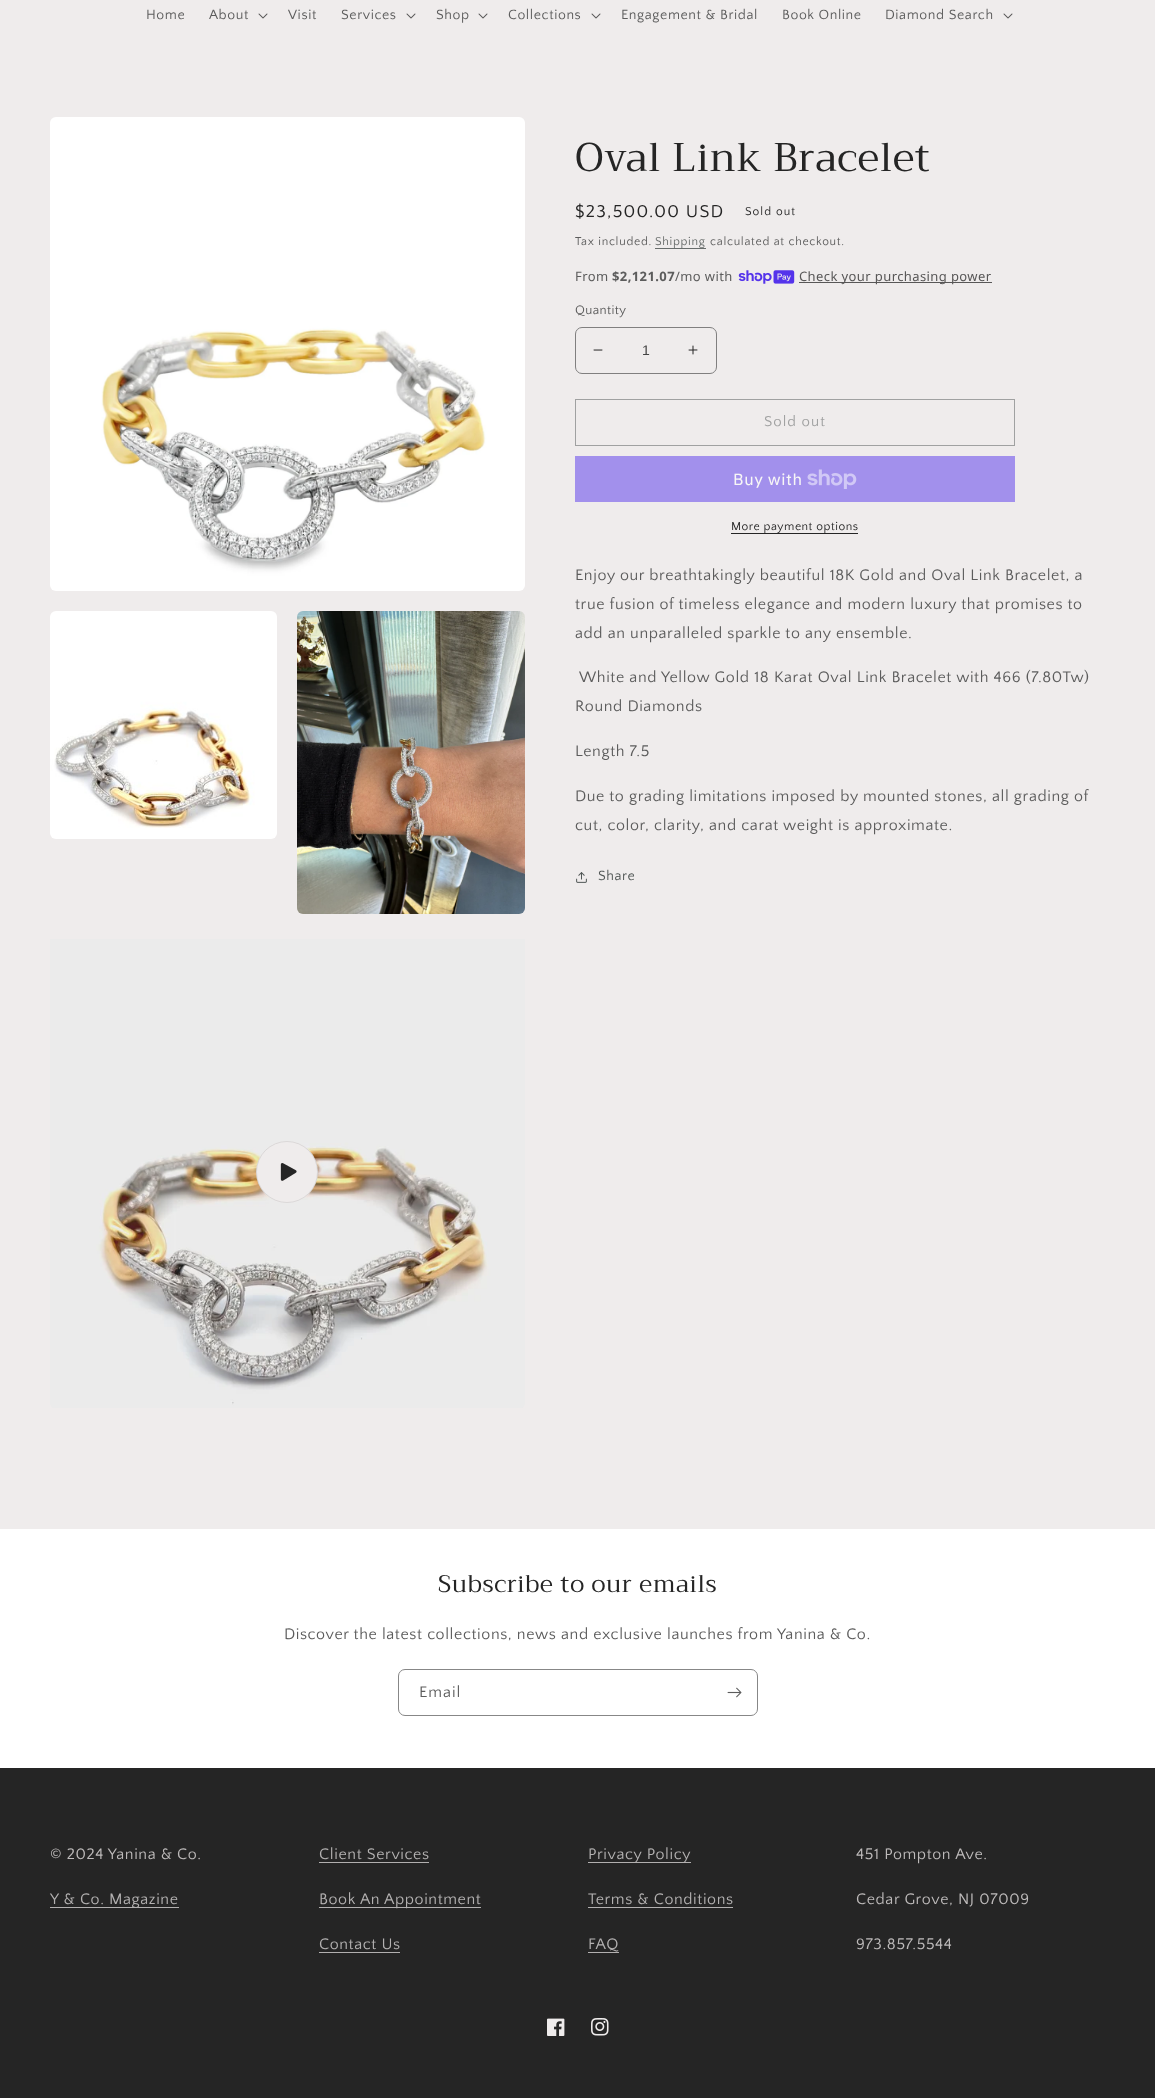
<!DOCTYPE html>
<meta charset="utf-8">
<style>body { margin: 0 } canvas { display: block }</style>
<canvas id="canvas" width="1155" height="2098"></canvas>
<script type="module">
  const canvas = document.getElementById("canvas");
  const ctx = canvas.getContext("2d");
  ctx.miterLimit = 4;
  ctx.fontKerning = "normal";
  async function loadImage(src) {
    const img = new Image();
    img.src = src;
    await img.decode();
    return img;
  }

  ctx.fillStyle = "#efecec";
  ctx.fillRect(0, 0, 1155, 2098);
  ctx.letterSpacing = "0.6px";
  ctx.font = "14px Quattrocento Sans";
  ctx.fillStyle = "#5c5c5c";
  ctx.fillText("Home", 146, 19);
  ctx.fillText("About", 209, 19);
  ctx.drawImage(await loadImage("img1.png"), 258, 13, 10, 6);
  ctx.fillText("Visit", 288, 19);
  ctx.fillText("Services", 341, 19);
  ctx.drawImage(await loadImage("img1.png"), 406, 13, 10, 6);
  ctx.fillText("Shop", 436, 19);
  ctx.drawImage(await loadImage("img1.png"), 478, 13, 10, 6);
  ctx.fillText("Collections", 508, 19);
  ctx.drawImage(await loadImage("img1.png"), 591, 13, 10, 6);
  ctx.fillText("Engagement & Bridal", 621, 19);
  ctx.fillText("Book Online", 782, 19);
  ctx.fillText("Diamond Search", 885, 19);
  ctx.drawImage(await loadImage("img1.png"), 1003, 13, 10, 6);
  ctx.drawImage(await loadImage("img2.png"), 50, 117, 475, 474);
  ctx.drawImage(await loadImage("img3.png"), 50, 611, 227, 228);
  ctx.drawImage(await loadImage("img4.png"), 297, 611, 228, 303);
  ctx.drawImage(await loadImage("img5.png"), 50, 939, 475, 469);
  ctx.fillStyle = "#efecec";
  ctx.beginPath();
  ctx.arc(287, 1172, 31, 0, Math.PI * 2);
  ctx.fill();
  ctx.beginPath();
  ctx.arc(287, 1172, 30.5, 0, Math.PI * 2);
  ctx.strokeStyle = "rgba(37, 37, 37, 0.1)";
  ctx.stroke();
  ctx.drawImage(await loadImage("img6.png"), 280, 1163, 17, 18);
  ctx.font = "40px Trirong";
  ctx.fillStyle = "#252525";
  ctx.fillText("Oval Link Bracelet", 575, 171);
  ctx.letterSpacing = "1.25px";
  ctx.font = "18px Quattrocento Sans";
  ctx.fillText("$23,500.00 USD", 575, 217);
  ctx.letterSpacing = "1px";
  ctx.font = "12px Quattrocento Sans";
  ctx.fillText("Sold out", 745, 215);
  ctx.letterSpacing = "0.7px";
  ctx.fillStyle = "#5c5c5c";
  ctx.fillText("Tax included.", 575, 245);
  ctx.fillStyle = "#686d6c";
  ctx.fillRect(655, 248, 51, 1);
  ctx.fillStyle = "#686c6b";
  ctx.fillText("Shipping", 655, 245);
  ctx.fillStyle = "#5c5c5c";
  ctx.fillText("calculated at checkout.", 710, 245);
  ctx.letterSpacing = "0.4px";
  ctx.font = "13px Noto Sans";
  ctx.fillText("From", 575, 281);
  ctx.font = "bold 13px Noto Sans";
  ctx.fillText("$2,121.07", 612, 281);
  ctx.font = "13px Noto Sans";
  ctx.fillText("/mo with", 675, 281);
  ctx.drawImage(await loadImage("img7.png"), 738, 270, 57, 14);
  ctx.fillStyle = "#585757";
  ctx.fillRect(799, 282, 193, 1);
  ctx.fillStyle = "#575656";
  ctx.fillText("Check your purchasing power", 799, 281);
  ctx.font = "13px Quattrocento Sans";
  ctx.fillStyle = "#5c5c5c";
  ctx.fillText("Quantity", 575, 314);
  ctx.drawImage(await loadImage("img8.png"), 593, 349, 10, 2);
  ctx.drawImage(await loadImage("img9.png"), 688, 345, 10, 10);
  ctx.beginPath();
  ctx.roundRect(575.5, 327.5, 141, 46, 6.5);
  ctx.strokeStyle = "#807f7f";
  ctx.stroke();
  ctx.letterSpacing = "0px";
  ctx.font = "14px Liberation Sans";
  ctx.fillStyle = "#434343";
  ctx.fillText("1", 642, 355);
  ctx.strokeStyle = "#a0a1a1";
  ctx.strokeRect(575.5, 399.5, 439, 46);
  ctx.letterSpacing = "1px";
  ctx.font = "15px Quattrocento Sans";
  ctx.fillStyle = "#a0a1a1";
  ctx.fillText("Sold out", 764, 426);
  ctx.fillStyle = "#a290ec";
  ctx.fillRect(575, 456, 440, 46);
  ctx.letterSpacing = "0.6px";
  ctx.font = "16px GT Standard";
  ctx.fillStyle = "#f7f6f6";
  ctx.fillText("Buy with", 733, 485);
  ctx.drawImage(await loadImage("img10.png"), 807, 469, 50, 20);
  ctx.fillStyle = "#252525";
  ctx.fillRect(731, 533, 127, 1);
  ctx.letterSpacing = "0.5px";
  ctx.font = "12px Quattrocento Sans";
  ctx.fillText("More payment options", 731, 530);
  ctx.letterSpacing = "0.6px";
  ctx.font = "16px Quattrocento Sans";
  ctx.fillStyle = "#5c5c5c";
  ctx.fillText("Enjoy our breathtakingly beautiful 18K Gold and Oval Link Bracelet, a", 575, 580);
  ctx.fillText("true fusion of timeless elegance and modern luxury that promises to", 575, 609);
  ctx.fillText("add an unparalleled sparkle to any ensemble.", 575, 638);
  ctx.fillText("White and Yellow Gold 18 Karat Oval Link Bracelet with 466 (7.80Tw)", 579, 682);
  ctx.fillText("Round Diamonds", 575, 711);
  ctx.fillText("Length 7.5", 575, 756);
  ctx.fillText("Due to grading limitations imposed by mounted stones, all grading of", 575, 801);
  ctx.fillText("cut, color, clarity, and carat weight is approximate.", 575, 830);
  ctx.drawImage(await loadImage("img11.png"), 576, 872, 11, 11);
  ctx.font = "14px Quattrocento Sans";
  ctx.fillStyle = "#505655";
  ctx.fillText("Share", 598, 880);
  ctx.fillStyle = "#ffffff";
  ctx.fillRect(0, 1529, 1155, 239);
  ctx.font = "24px Trirong";
  ctx.fillStyle = "#252525";
  ctx.fillText("Subscribe to our emails", 438, 1592);
  ctx.font = "16px Quattrocento Sans";
  ctx.fillStyle = "#5c5c5c";
  ctx.fillText("Discover the latest collections, news and exclusive launches from Yanina & Co.", 284, 1639);
  ctx.beginPath();
  ctx.roundRect(398.5, 1669.5, 359, 46, 6.5);
  ctx.strokeStyle = "#878787";
  ctx.stroke();
  ctx.letterSpacing = "1px";
  ctx.fillText("Email", 419, 1697);
  ctx.drawImage(await loadImage("img12.png"), 727, 1687, 15, 11);
  ctx.fillStyle = "#252525";
  ctx.fillRect(0, 1768, 1155, 330);
  ctx.letterSpacing = "0.6px";
  ctx.fillStyle = "#bdbaba";
  ctx.fillText("© 2024 Yanina & Co.", 50, 1859);
  ctx.fillStyle = "#b2b0b0";
  ctx.fillRect(50, 1907, 129, 1);
  ctx.fillStyle = "#b3b1b1";
  ctx.fillText("Y & Co. Magazine", 50, 1904);
  ctx.fillText("Client Services", 319, 1859);
  ctx.fillStyle = "#b2b0b0";
  ctx.fillRect(319, 1862, 110, 1);
  ctx.fillRect(319, 1907, 162, 1);
  ctx.fillStyle = "#b3b1b1";
  ctx.fillText("Book An Appointment", 319, 1904);
  ctx.fillText("Contact Us", 319, 1949);
  ctx.fillStyle = "#b2b0b0";
  ctx.fillRect(319, 1952, 81, 1);
  ctx.fillRect(588, 1862, 103, 1);
  ctx.fillStyle = "#b3b1b1";
  ctx.fillText("Privacy Policy", 588, 1859);
  ctx.fillText("Terms & Conditions", 588, 1904);
  ctx.fillStyle = "#b2b0b0";
  ctx.fillRect(588, 1907, 145, 1);
  ctx.fillStyle = "#b3b1b1";
  ctx.fillText("FAQ", 588, 1949);
  ctx.fillStyle = "#b2b0b0";
  ctx.fillRect(588, 1952, 31, 1);
  ctx.fillStyle = "#bdbaba";
  ctx.fillText("451 Pompton Ave.", 856, 1859);
  ctx.fillText("Cedar Grove, NJ 07009", 856, 1904);
  ctx.fillText("973.857.5544", 856, 1949);
  ctx.drawImage(await loadImage("img13.png"), 547, 2018, 18, 18);
  ctx.drawImage(await loadImage("img14.png"), 591, 2018, 18, 18);
</script>
